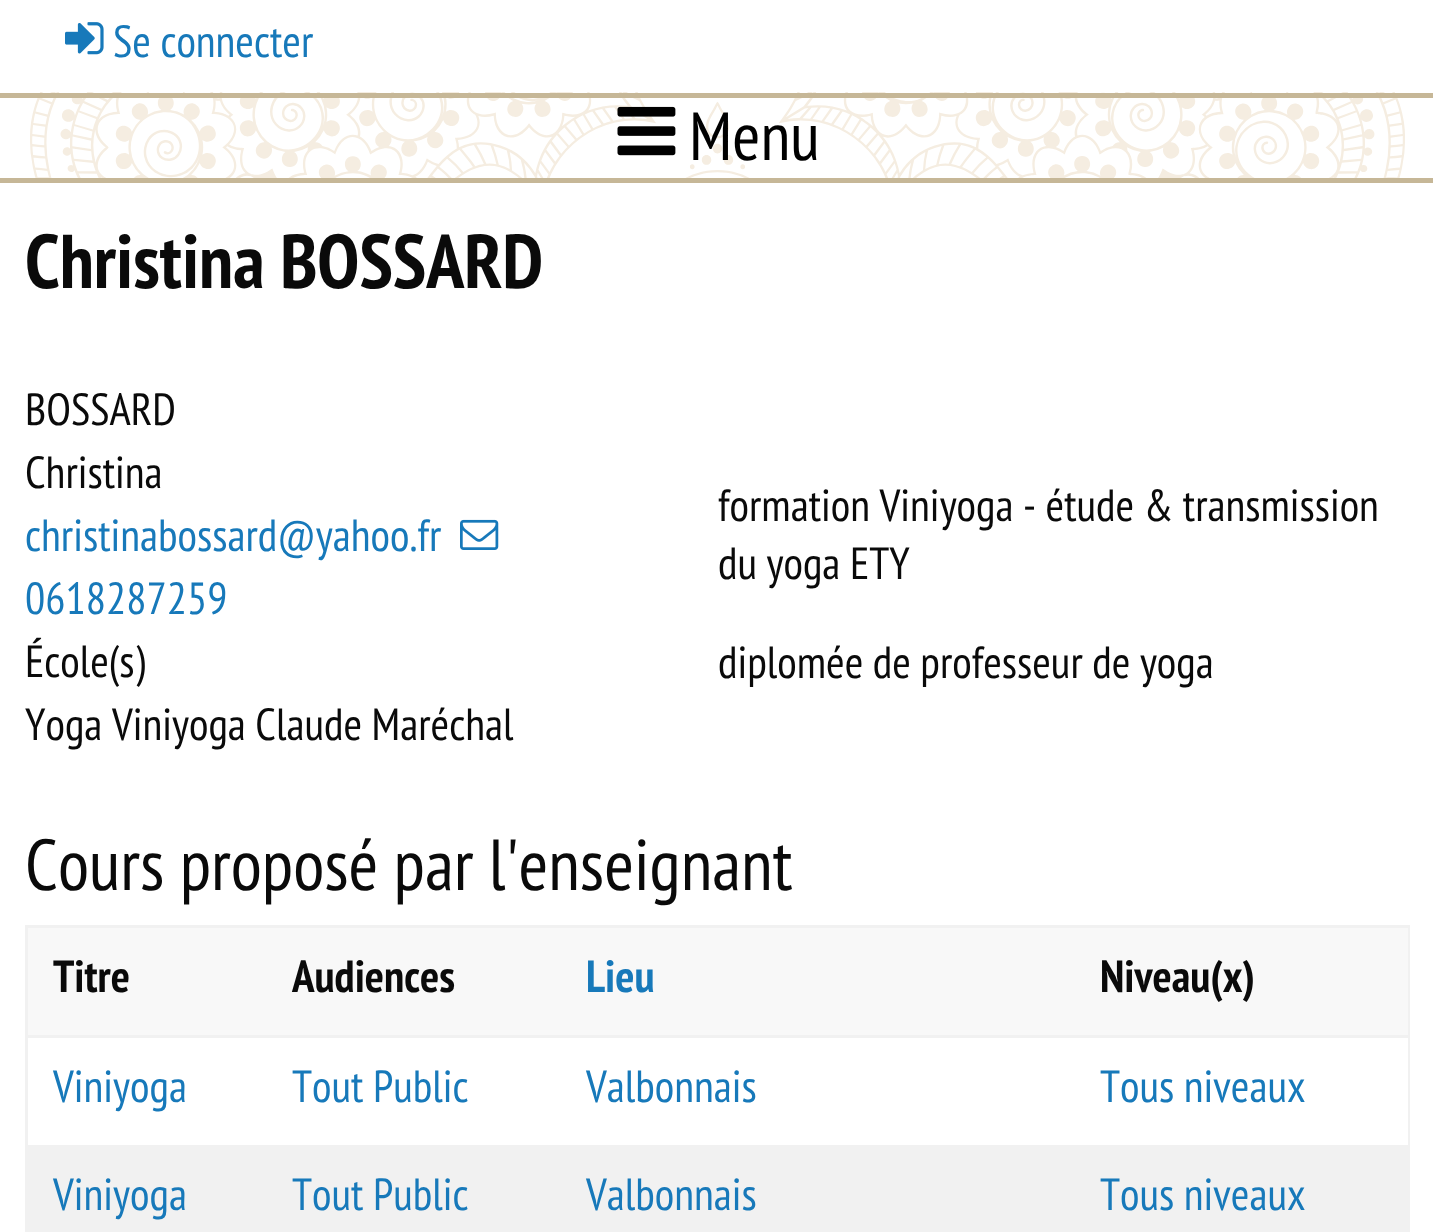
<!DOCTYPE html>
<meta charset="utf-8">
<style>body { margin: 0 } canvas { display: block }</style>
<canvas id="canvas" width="1433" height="1232"></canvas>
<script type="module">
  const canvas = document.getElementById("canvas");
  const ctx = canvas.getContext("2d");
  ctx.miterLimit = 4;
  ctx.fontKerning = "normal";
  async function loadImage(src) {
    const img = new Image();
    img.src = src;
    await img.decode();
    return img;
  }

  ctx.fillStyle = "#ffffff";
  ctx.fillRect(0, 0, 1433, 1232);
  ctx.drawImage(await loadImage("img1.png"), 65, 22, 39, 33);
  ctx.font = "45px PT Sans Narrow";
  ctx.fillStyle = "#1779ba";
  ctx.fillText("Se connecter", 113, 57);
  ctx.drawImage(await loadImage("img2.png"), 30, 92, 1375, 86);
  ctx.fillStyle = "#c6b797";
  ctx.fillRect(0, 93, 1433, 5);
  ctx.fillRect(0, 178, 1433, 5);
  ctx.drawImage(await loadImage("img3.png"), 617, 106, 59, 50);
  ctx.font = "68px PT Sans Narrow";
  ctx.fillStyle = "#000000";
  ctx.fillText("Menu", 689, 160);
  ctx.font = "bold 76px PT Sans Narrow";
  ctx.fillStyle = "#0a0a0a";
  ctx.fillText("Christina BOSSARD", 25, 288);
  ctx.font = "45px PT Sans Narrow";
  ctx.fillText("BOSSARD", 25, 425);
  ctx.fillText("Christina", 25, 488);
  ctx.fillStyle = "#1779ba";
  ctx.fillText("christinabossard@yahoo.fr", 25, 551);
  ctx.drawImage(await loadImage("img4.png"), 460, 519, 39, 31);
  ctx.fillText("0618287259", 25, 614);
  ctx.fillStyle = "#0a0a0a";
  ctx.fillText("École(s)", 25, 677);
  ctx.fillText("Yoga Viniyoga Claude Maréchal", 25, 740);
  ctx.fillText("formation Viniyoga - étude & transmission", 718, 521);
  ctx.fillText("du yoga ETY", 718, 579);
  ctx.fillText("diplomée de professeur de yoga", 718, 678);
  ctx.font = "72px PT Sans Narrow";
  ctx.fillText("Cours proposé par l'enseignant", 25, 890);
  ctx.fillStyle = "#f8f8f8";
  ctx.fillRect(28, 928, 1380, 107);
  ctx.fillStyle = "#f1f1f1";
  ctx.fillRect(25, 925, 1385, 3);
  ctx.fillRect(25, 1035, 1385, 3);
  ctx.fillRect(1408, 1035, 2, 197);
  ctx.fillRect(1408, 925, 2, 113);
  ctx.fillRect(25, 1035, 3, 197);
  ctx.fillRect(25, 925, 3, 113);
  ctx.font = "bold 45px PT Sans Narrow";
  ctx.fillStyle = "#0a0a0a";
  ctx.fillText("Titre", 53, 992);
  ctx.fillText("Audiences", 292, 992);
  ctx.fillStyle = "#1779ba";
  ctx.fillText("Lieu", 586, 992);
  ctx.fillStyle = "#0a0a0a";
  ctx.fillText("Niveau(x)", 1100, 992);
  ctx.font = "45px PT Sans Narrow";
  ctx.fillStyle = "#1779ba";
  ctx.fillText("Viniyoga", 53, 1102);
  ctx.fillText("Tout Public", 292, 1102);
  ctx.fillText("Valbonnais", 586, 1102);
  ctx.fillText("Tous niveaux", 1100, 1102);
  ctx.fillStyle = "#f1f1f1";
  ctx.fillRect(28, 1145, 1380, 87);
  ctx.fillStyle = "#1779ba";
  ctx.fillText("Viniyoga", 53, 1210);
  ctx.fillText("Tout Public", 292, 1210);
  ctx.fillText("Valbonnais", 586, 1210);
  ctx.fillText("Tous niveaux", 1100, 1210);
</script>
